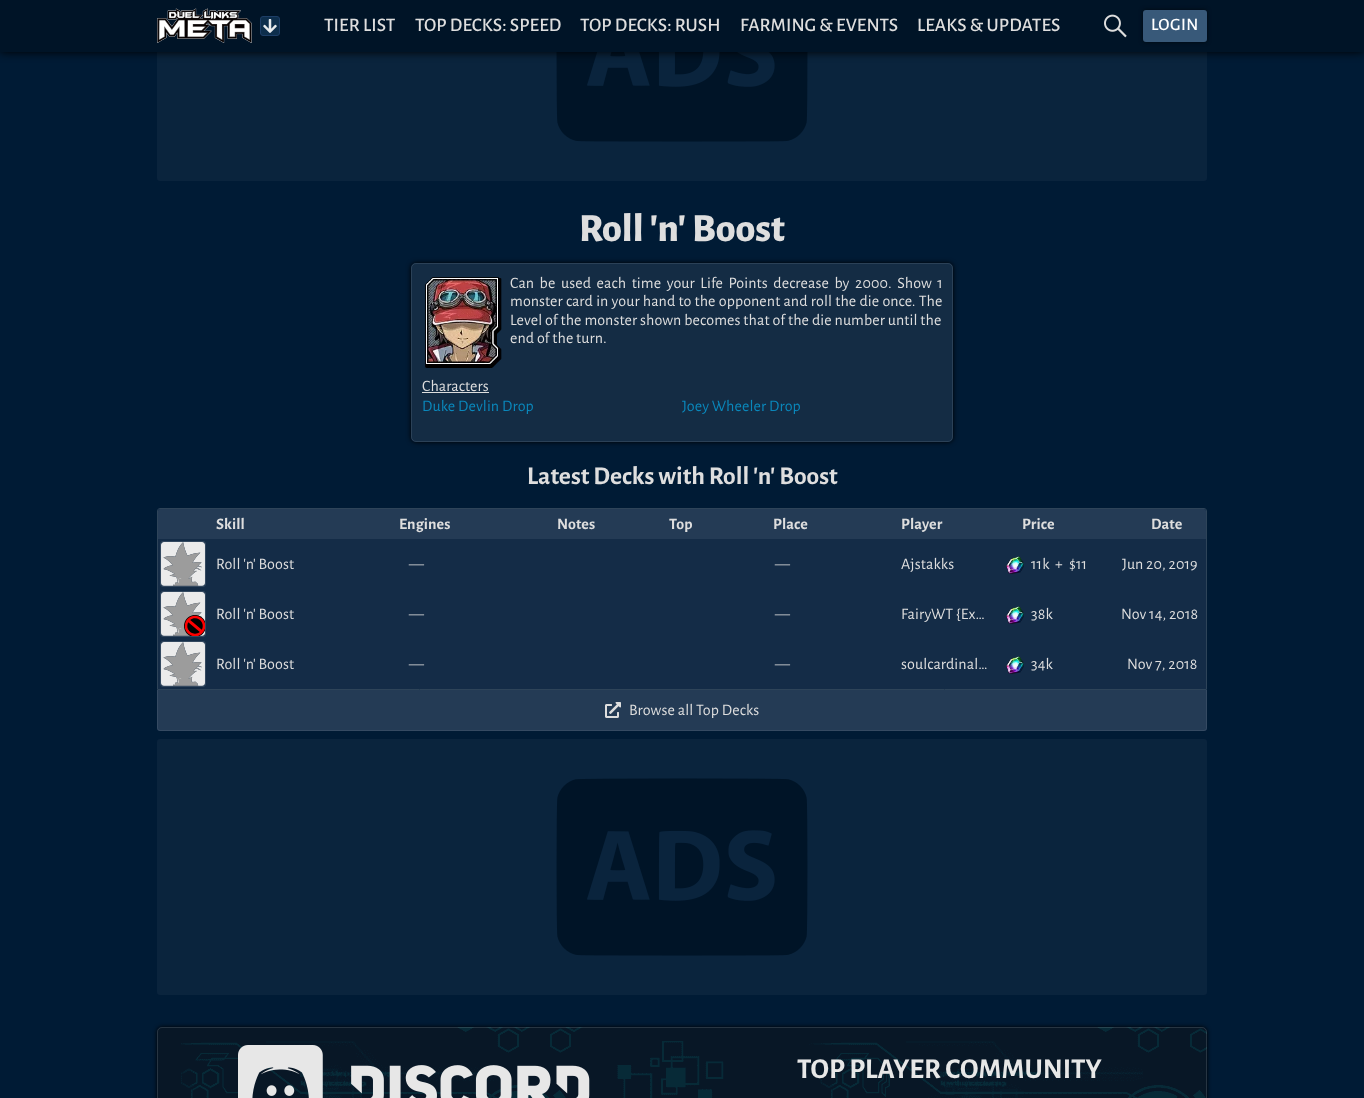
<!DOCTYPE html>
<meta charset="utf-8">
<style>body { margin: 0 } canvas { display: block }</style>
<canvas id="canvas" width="1364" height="1098"></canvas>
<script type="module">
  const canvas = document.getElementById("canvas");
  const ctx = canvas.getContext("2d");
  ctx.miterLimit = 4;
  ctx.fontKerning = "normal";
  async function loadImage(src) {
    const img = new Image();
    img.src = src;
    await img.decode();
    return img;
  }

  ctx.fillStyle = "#001b35";
  ctx.fillRect(0, 0, 1364, 1098);
  ctx.fillStyle = "#0a243d";
  ctx.beginPath();
  ctx.roundRect(157, -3, 1050, 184, 3);
  ctx.fill();
  ctx.drawImage(await loadImage("img4.png"), 556, 52, 252, 90);
  ctx.fillStyle = "#000000";
  ctx.filter = "blur(5px)";
  ctx.beginPath();
  ctx.rect(0, 0, 1364, 52);
  ctx.fill();
  ctx.filter = "none";
  ctx.fillStyle = "#001427";
  ctx.fillRect(0, 0, 1364, 52);
  ctx.drawImage(await loadImage("img1.png"), 157, 8, 95, 35);
  ctx.fillStyle = "#0d2e4c";
  ctx.beginPath();
  ctx.roundRect(260.5, 16.5, 19, 19, 2.5);
  ctx.fill();
  ctx.strokeStyle = "#1d3e67";
  ctx.stroke();
  ctx.drawImage(await loadImage("img2.png"), 263, 19, 14, 14);
  ctx.letterSpacing = "0.1px";
  ctx.font = "500 19.25px Alegreya Sans";
  ctx.fillStyle = "#dedede";
  ctx.fillText("TIER LIST", 324, 31);
  ctx.fillText("TOP DECKS: SPEED", 415, 31);
  ctx.fillText("TOP DECKS: RUSH", 580, 31);
  ctx.fillText("FARMING & EVENTS", 740, 31);
  ctx.fillText("LEAKS & UPDATES", 917, 31);
  ctx.drawImage(await loadImage("img3.png"), 1104, 14, 23, 24);
  ctx.fillStyle = "#00080e";
  ctx.filter = "blur(2px)";
  ctx.beginPath();
  ctx.roundRect(1143, 10, 64, 32, 3);
  ctx.fill();
  ctx.filter = "none";
  ctx.fillStyle = "#385979";
  ctx.beginPath();
  ctx.roundRect(1143, 10, 64, 32, 3);
  ctx.fill();
  ctx.letterSpacing = "0.5px";
  ctx.font = "500 17.5px Alegreya Sans";
  ctx.fillStyle = "#ffffff";
  ctx.fillText("LOGIN", 1151, 30);
  ctx.letterSpacing = "0px";
  ctx.font = "800 40px Alegreya Sans";
  ctx.fillStyle = "#dedede";
  ctx.fillText("Roll 'n' Boost", 579, 241);
  ctx.save();
  ctx.beginPath();
  ctx.moveTo(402, 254);
  ctx.lineTo(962, 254);
  ctx.lineTo(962, 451);
  ctx.lineTo(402, 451);
  ctx.closePath();
  ctx.moveTo(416, 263);
  ctx.lineTo(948, 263);
  ctx.bezierCurveTo(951, 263, 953, 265, 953, 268);
  ctx.lineTo(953, 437);
  ctx.bezierCurveTo(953, 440, 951, 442, 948, 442);
  ctx.lineTo(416, 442);
  ctx.bezierCurveTo(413, 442, 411, 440, 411, 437);
  ctx.lineTo(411, 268);
  ctx.bezierCurveTo(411, 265, 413, 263, 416, 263);
  ctx.closePath();
  ctx.clip("evenodd");
  ctx.fillStyle = "#000000";
  ctx.filter = "blur(2.5px)";
  ctx.beginPath();
  ctx.roundRect(411, 263, 542, 179, 5);
  ctx.fill();
  ctx.filter = "none";
  ctx.restore();
  ctx.fillStyle = "rgba(255, 255, 255, 0.08)";
  ctx.beginPath();
  ctx.roundRect(411, 263, 542, 179, 5);
  ctx.fill();
  ctx.beginPath();
  ctx.roundRect(411.5, 263.5, 541, 178, 4.5);
  ctx.strokeStyle = "rgba(255, 255, 255, 0.1)";
  ctx.stroke();
  ctx.drawImage(await loadImage("img5.png"), 425, 277, 77, 91);
  ctx.letterSpacing = "0.1px";
  ctx.wordSpacing = "2.75px";
  ctx.font = "16px Alegreya Sans";
  ctx.fillStyle = "#dedede";
  ctx.fillText("Can be used each time your Life Points decrease by 2000. Show 1", 510, 288);
  ctx.wordSpacing = "0.4px";
  ctx.fillText("monster card in your hand to the opponent and roll the die once. The", 510, 306);
  ctx.wordSpacing = "0.1px";
  ctx.fillText("Level of the monster shown becomes that of the die number until the", 510, 325);
  ctx.wordSpacing = "0px";
  ctx.fillText("end of the turn.", 510, 343);
  ctx.fillText("Characters", 422, 391);
  ctx.fillRect(422, 392, 67, 1);
  ctx.fillStyle = "#0a87bb";
  ctx.fillText("Duke Devlin Drop", 422, 411);
  ctx.fillText("Joey Wheeler Drop", 682, 411);
  ctx.letterSpacing = "0px";
  ctx.font = "bold 25.6px Alegreya Sans";
  ctx.fillStyle = "#dedede";
  ctx.fillText("Latest Decks with Roll 'n' Boost", 527, 484);
  ctx.beginPath();
  ctx.roundRect(157.5, 508.5, 1049, 181, [2.5, 2.5, 0, 0]);
  ctx.strokeStyle = "#2e4459";
  ctx.stroke();
  ctx.fillStyle = "#243b55";
  ctx.beginPath();
  ctx.roundRect(158, 509, 50, 30, [2, 0, 0, 0]);
  ctx.fill();
  ctx.fillRect(208, 509, 894, 30);
  ctx.letterSpacing = "0.1px";
  ctx.font = "bold 16px Alegreya Sans";
  ctx.fillStyle = "#dedede";
  ctx.fillText("Skill", 216, 529);
  ctx.fillText("Engines", 399, 529);
  ctx.fillText("Notes", 557, 529);
  ctx.fillText("Top", 669, 529);
  ctx.fillText("Place", 773, 529);
  ctx.fillText("Player", 901, 529);
  ctx.fillText("Price", 1022, 529);
  ctx.fillStyle = "#243b55";
  ctx.beginPath();
  ctx.roundRect(1102, 509, 104, 30, [0, 2, 0, 0]);
  ctx.fill();
  ctx.fillStyle = "#dedede";
  ctx.fillText("Date", 1151, 529);
  ctx.fillStyle = "#142c47";
  ctx.fillRect(158, 539, 1048, 50);
  ctx.beginPath();
  ctx.roundRect(160.5, 541.5, 45, 45, 2.5);
  ctx.strokeStyle = "#33485f";
  ctx.stroke();
  ctx.drawImage(await loadImage("img6.png"), 161, 542, 44, 44);
  ctx.font = "16px Alegreya Sans";
  ctx.fillStyle = "#dedede";
  ctx.fillText("Roll 'n' Boost", 216, 569);
  ctx.fillText("—", 409, 569);
  ctx.fillText("—", 775, 569);
  ctx.fillText("Ajstakks", 901, 569);
  ctx.drawImage(await loadImage("img7.png"), 1006, 556, 18, 18);
  ctx.fillText("11k", 1031, 569);
  ctx.fillText("+", 1055, 569);
  ctx.fillText("$11", 1069, 569);
  ctx.fillText("Jun 20, 2019", 1122, 569);
  ctx.fillStyle = "#142c47";
  ctx.fillRect(158, 589, 1048, 50);
  ctx.beginPath();
  ctx.roundRect(160.5, 591.5, 45, 45, 2.5);
  ctx.stroke();
  ctx.drawImage(await loadImage("img6.png"), 161, 592, 44, 44);
  ctx.drawImage(await loadImage("img8.png"), 184, 615, 21, 21);
  ctx.fillStyle = "#dedede";
  ctx.fillText("Roll 'n' Boost", 216, 619);
  ctx.fillText("—", 409, 619);
  ctx.fillText("—", 775, 619);
  ctx.fillText("FairyWT {Ex…", 901, 619);
  ctx.drawImage(await loadImage("img7.png"), 1006, 606, 18, 18);
  ctx.fillText("38k", 1031, 619);
  ctx.fillText("Nov 14, 2018", 1121, 619);
  ctx.fillStyle = "#142c47";
  ctx.fillRect(158, 639, 1048, 50);
  ctx.beginPath();
  ctx.roundRect(160.5, 641.5, 45, 45, 2.5);
  ctx.stroke();
  ctx.drawImage(await loadImage("img6.png"), 161, 642, 44, 44);
  ctx.fillStyle = "#dedede";
  ctx.fillText("Roll 'n' Boost", 216, 669);
  ctx.fillText("—", 409, 669);
  ctx.fillText("—", 775, 669);
  ctx.fillText("soulcardinal…", 901, 669);
  ctx.drawImage(await loadImage("img7.png"), 1006, 656, 18, 18);
  ctx.fillText("34k", 1031, 669);
  ctx.fillText("Nov 7, 2018", 1127, 669);
  ctx.fillStyle = "#243b55";
  ctx.beginPath();
  ctx.roundRect(157, 690, 1050, 41, [0, 0, 3, 3]);
  ctx.fill();
  ctx.fillStyle = "rgba(255, 255, 255, 0.08)";
  ctx.beginPath();
  ctx.moveTo(157, 690);
  ctx.lineTo(1207, 690);
  ctx.lineTo(1207, 728);
  ctx.bezierCurveTo(1207, 730, 1206, 731, 1204, 731);
  ctx.lineTo(160, 731);
  ctx.bezierCurveTo(158, 731, 157, 730, 157, 728);
  ctx.closePath();
  ctx.moveTo(158, 690);
  ctx.lineTo(1206, 690);
  ctx.lineTo(1206, 728);
  ctx.bezierCurveTo(1206, 729, 1205, 730, 1204, 730);
  ctx.lineTo(160, 730);
  ctx.bezierCurveTo(159, 730, 158, 729, 158, 728);
  ctx.closePath();
  ctx.fill("evenodd");
  ctx.drawImage(await loadImage("img9.png"), 605, 702, 16, 16);
  ctx.fillStyle = "#dedede";
  ctx.fillText("Browse all Top Decks", 629, 715);
  ctx.fillStyle = "#0a243d";
  ctx.beginPath();
  ctx.roundRect(157, 739, 1050, 256, 3);
  ctx.fill();
  ctx.drawImage(await loadImage("img10.png"), 556, 778, 252, 178);
  ctx.save();
  ctx.beginPath();
  ctx.moveTo(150, 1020);
  ctx.lineTo(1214, 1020);
  ctx.lineTo(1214, 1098);
  ctx.lineTo(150, 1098);
  ctx.closePath();
  ctx.moveTo(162, 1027);
  ctx.lineTo(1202, 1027);
  ctx.bezierCurveTo(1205, 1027, 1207, 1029, 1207, 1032);
  ctx.lineTo(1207, 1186);
  ctx.bezierCurveTo(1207, 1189, 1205, 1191, 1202, 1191);
  ctx.lineTo(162, 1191);
  ctx.bezierCurveTo(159, 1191, 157, 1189, 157, 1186);
  ctx.lineTo(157, 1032);
  ctx.bezierCurveTo(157, 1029, 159, 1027, 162, 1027);
  ctx.closePath();
  ctx.clip("evenodd");
  ctx.fillStyle = "#000000";
  ctx.filter = "blur(2px)";
  ctx.beginPath();
  ctx.roundRect(157, 1027, 1050, 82, 5);
  ctx.fill();
  ctx.filter = "none";
  ctx.restore();
  ctx.fillStyle = "rgba(18, 18, 18, 0.42)";
  ctx.beginPath();
  ctx.roundRect(157, 1027, 1050, 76, 5);
  ctx.fill();
  ctx.drawImage(await loadImage("img11.png"), 181, 1027, 1026, 71);
  ctx.beginPath();
  ctx.roundRect(157.5, 1027.5, 1049, 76, 4.5);
  ctx.strokeStyle = "rgba(255, 255, 255, 0.13)";
  ctx.stroke();
  ctx.drawImage(await loadImage("img12.png"), 238, 1045, 352, 53);
  ctx.letterSpacing = "0px";
  ctx.font = "bold 28.75px Alegreya Sans";
  ctx.fillStyle = "#e7e7e7";
  ctx.fillText("TOP PLAYER COMMUNITY", 797, 1078);
</script>
